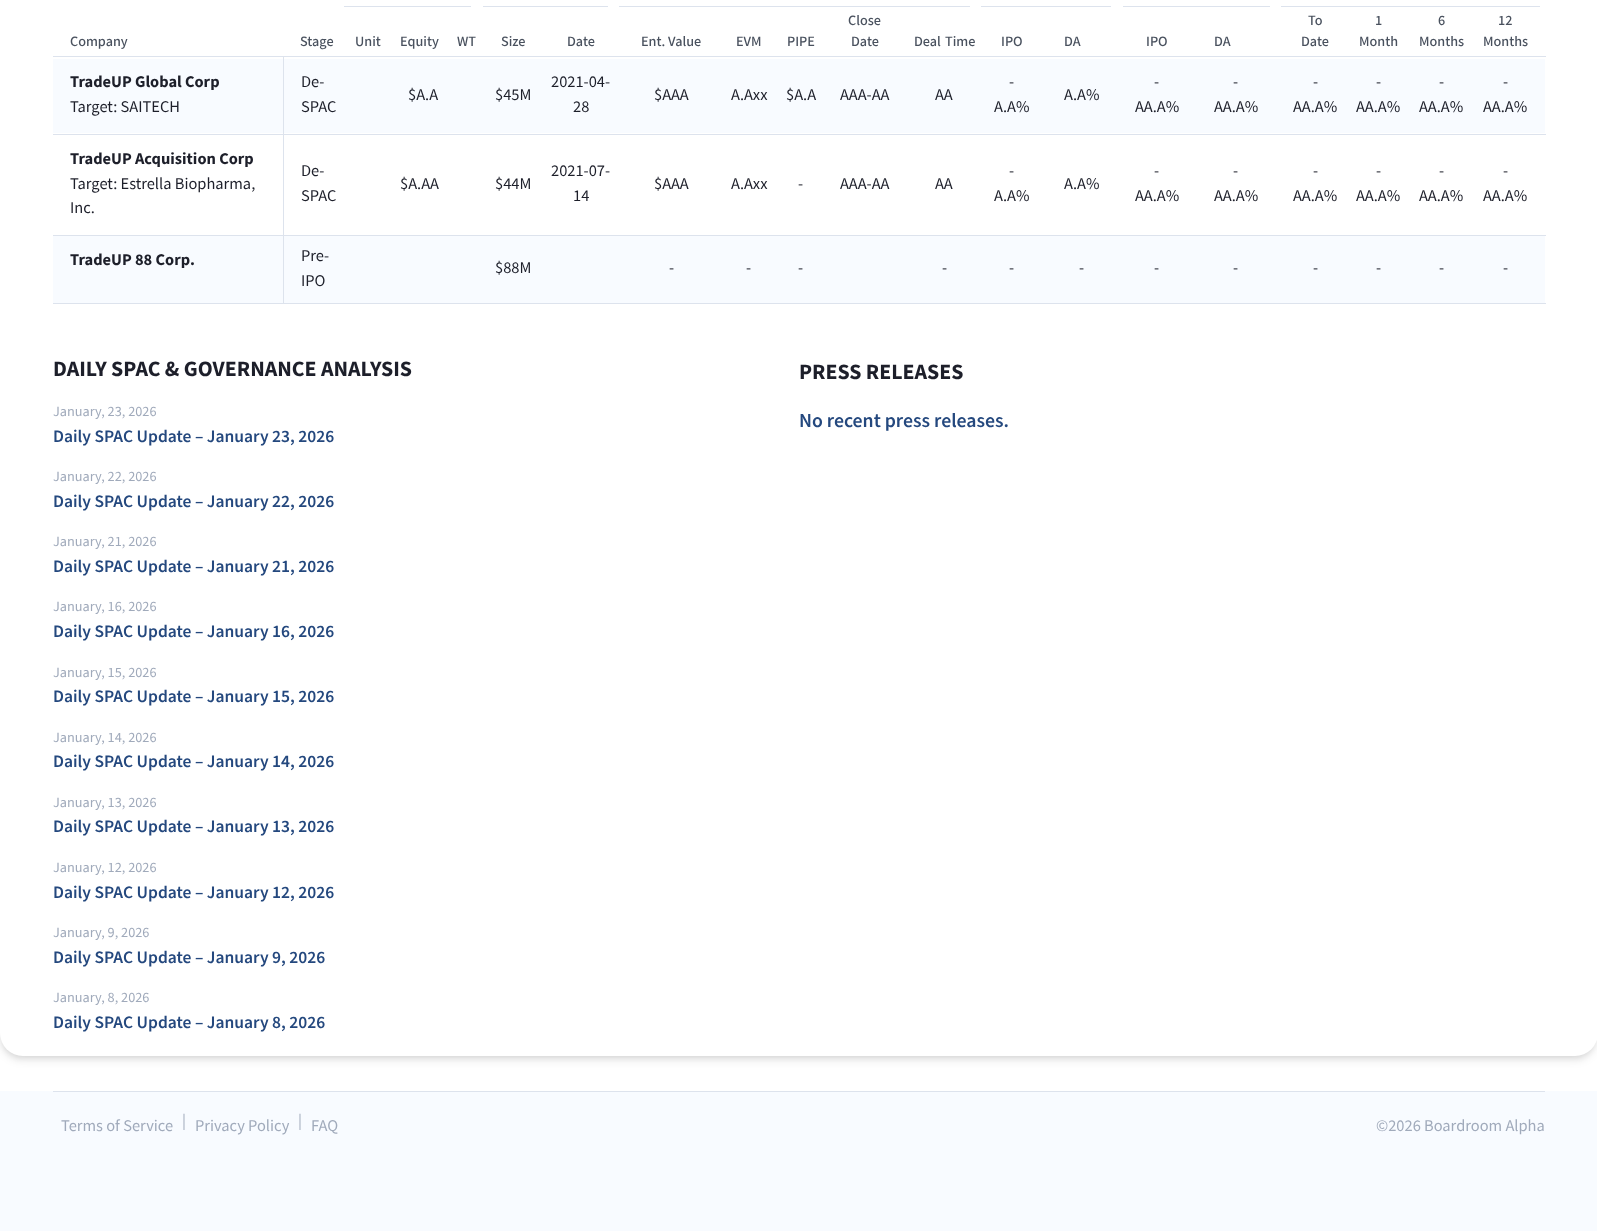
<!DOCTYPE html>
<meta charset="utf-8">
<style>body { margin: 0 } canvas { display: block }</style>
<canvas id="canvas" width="1597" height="1231"></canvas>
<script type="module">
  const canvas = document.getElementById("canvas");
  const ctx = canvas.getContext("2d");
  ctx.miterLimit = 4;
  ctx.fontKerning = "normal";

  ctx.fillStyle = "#ffffff";
  ctx.fillRect(0, 0, 1597, 1231);
  ctx.fillStyle = "rgba(0, 0, 0, 0.06)";
  ctx.filter = "blur(2.5px)";
  ctx.beginPath();
  ctx.roundRect(1, -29, 1595, 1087, 21);
  ctx.fill();
  ctx.filter = "none";
  ctx.fillStyle = "rgba(0, 0, 0, 0.1)";
  ctx.filter = "blur(4px)";
  ctx.beginPath();
  ctx.roundRect(1, -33, 1595, 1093, 21);
  ctx.fill();
  ctx.filter = "none";
  ctx.fillStyle = "#ffffff";
  ctx.beginPath();
  ctx.roundRect(0, -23, 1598, 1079, 23);
  ctx.fill();
  ctx.fillStyle = "#dde3ed";
  ctx.fillRect(344, 6, 127, 1);
  ctx.fillRect(483, 6, 125, 1);
  ctx.fillRect(619, 6, 351, 1);
  ctx.fillRect(981, 6, 130, 1);
  ctx.fillRect(1123, 6, 147, 1);
  ctx.fillRect(1281, 6, 259, 1);
  ctx.font = "500 14.25px Mada";
  ctx.fillStyle = "#49515e";
  ctx.fillText("Company", 70, 46);
  ctx.fillText("Stage", 300, 46);
  ctx.fillText("Unit", 355, 46);
  ctx.fillText("Equity", 400, 46);
  ctx.fillText("WT", 457, 46);
  ctx.fillText("Size", 501, 46);
  ctx.fillText("Date", 567, 46);
  ctx.fillText("Ent. Value", 641, 46);
  ctx.fillText("EVM", 736, 46);
  ctx.fillText("PIPE", 787, 46);
  ctx.fillText("Close", 848, 25);
  ctx.fillText("Date", 851, 46);
  ctx.fillText("Deal", 914, 46);
  ctx.fillText("Time", 945, 46);
  ctx.fillText("IPO", 1001, 46);
  ctx.fillText("DA", 1064, 46);
  ctx.fillText("IPO", 1146, 46);
  ctx.fillText("DA", 1214, 46);
  ctx.fillText("To", 1308, 25);
  ctx.fillText("Date", 1301, 46);
  ctx.fillText("1", 1375, 25);
  ctx.fillText("Month", 1359, 46);
  ctx.fillText("6", 1438, 25);
  ctx.fillText("Months", 1419, 46);
  ctx.fillText("12", 1498, 25);
  ctx.fillText("Months", 1483, 46);
  ctx.fillStyle = "#f8fbff";
  ctx.fillRect(53, 59, 1492, 74);
  ctx.fillStyle = "#dde3ed";
  ctx.fillRect(53, 56, 1493, 1);
  ctx.fillRect(53, 134, 1493, 1);
  ctx.font = "bold 16.4px Mada";
  ctx.fillStyle = "#1d1f2a";
  ctx.fillText("TradeUP Global Corp", 70, 87);
  ctx.font = "16.4px Mada";
  ctx.fillText("Target: SAITECH", 70, 112);
  ctx.fillText("De-", 301, 87);
  ctx.fillText("SPAC", 301, 112);
  ctx.fillText("$A.A", 408, 100);
  ctx.fillText("$45M", 495, 100);
  ctx.fillText("2021-04-", 551, 87);
  ctx.fillText("28", 573, 112);
  ctx.fillText("$AAA", 654, 100);
  ctx.fillText("A.Axx", 731, 100);
  ctx.fillText("$A.A", 786, 100);
  ctx.fillText("AAA-AA", 840, 100);
  ctx.fillText("AA", 935, 100);
  ctx.fillText("-", 1009, 87);
  ctx.fillText("A.A%", 994, 112);
  ctx.fillText("A.A%", 1064, 100);
  ctx.fillText("-", 1154, 87);
  ctx.fillText("AA.A%", 1135, 112);
  ctx.fillText("-", 1233, 87);
  ctx.fillText("AA.A%", 1214, 112);
  ctx.fillText("-", 1313, 87);
  ctx.fillText("AA.A%", 1293, 112);
  ctx.fillText("-", 1376, 87);
  ctx.fillText("AA.A%", 1356, 112);
  ctx.fillText("-", 1439, 87);
  ctx.fillText("AA.A%", 1419, 112);
  ctx.fillText("-", 1503, 87);
  ctx.fillText("AA.A%", 1483, 112);
  ctx.font = "bold 16.4px Mada";
  ctx.fillText("TradeUP Acquisition Corp", 70, 164);
  ctx.font = "16.4px Mada";
  ctx.fillText("Target: Estrella Biopharma,", 70, 189);
  ctx.fillText("Inc.", 70, 213);
  ctx.fillText("De-", 301, 176);
  ctx.fillText("SPAC", 301, 201);
  ctx.fillText("$A.AA", 400, 189);
  ctx.fillText("$44M", 495, 189);
  ctx.fillText("2021-07-", 551, 176);
  ctx.fillText("14", 573, 201);
  ctx.fillText("$AAA", 654, 189);
  ctx.fillText("A.Axx", 731, 189);
  ctx.fillText("-", 798, 189);
  ctx.fillText("AAA-AA", 840, 189);
  ctx.fillText("AA", 935, 189);
  ctx.fillText("-", 1009, 176);
  ctx.fillText("A.A%", 994, 201);
  ctx.fillText("A.A%", 1064, 189);
  ctx.fillText("-", 1154, 176);
  ctx.fillText("AA.A%", 1135, 201);
  ctx.fillText("-", 1233, 176);
  ctx.fillText("AA.A%", 1214, 201);
  ctx.fillText("-", 1313, 176);
  ctx.fillText("AA.A%", 1293, 201);
  ctx.fillText("-", 1376, 176);
  ctx.fillText("AA.A%", 1356, 201);
  ctx.fillText("-", 1439, 176);
  ctx.fillText("AA.A%", 1419, 201);
  ctx.fillText("-", 1503, 176);
  ctx.fillText("AA.A%", 1483, 201);
  ctx.fillStyle = "#f8fbff";
  ctx.fillRect(53, 236, 1492, 67);
  ctx.fillStyle = "#dde3ed";
  ctx.fillRect(53, 235, 1493, 1);
  ctx.fillRect(53, 303, 1493, 1);
  ctx.fillRect(283, 56, 1, 248);
  ctx.font = "bold 16.4px Mada";
  ctx.fillStyle = "#1d1f2a";
  ctx.fillText("TradeUP 88 Corp.", 70, 265);
  ctx.font = "16.4px Mada";
  ctx.fillText("Pre-", 301, 261);
  ctx.fillText("IPO", 301, 286);
  ctx.fillText("$88M", 495, 273);
  ctx.fillText("-", 669, 273);
  ctx.fillText("-", 746, 273);
  ctx.fillText("-", 798, 273);
  ctx.fillText("-", 942, 273);
  ctx.fillText("-", 1009, 273);
  ctx.fillText("-", 1079, 273);
  ctx.fillText("-", 1154, 273);
  ctx.fillText("-", 1233, 273);
  ctx.fillText("-", 1313, 273);
  ctx.fillText("-", 1376, 273);
  ctx.fillText("-", 1439, 273);
  ctx.fillText("-", 1503, 273);
  ctx.font = "bold 21.9px Mada";
  ctx.fillText("DAILY SPAC & GOVERNANCE ANALYSIS", 53, 376);
  ctx.font = "14.25px Mada";
  ctx.fillStyle = "#a0aabb";
  ctx.fillText("January, 23, 2026", 53, 416);
  ctx.font = "600 17.5px Mada";
  ctx.fillStyle = "#24487e";
  ctx.fillText("Daily SPAC Update – January 23, 2026", 53, 442);
  ctx.font = "14.25px Mada";
  ctx.fillStyle = "#a0aabb";
  ctx.fillText("January, 22, 2026", 53, 481);
  ctx.font = "600 17.5px Mada";
  ctx.fillStyle = "#24487e";
  ctx.fillText("Daily SPAC Update – January 22, 2026", 53, 507);
  ctx.font = "14.25px Mada";
  ctx.fillStyle = "#a0aabb";
  ctx.fillText("January, 21, 2026", 53, 546);
  ctx.font = "600 17.5px Mada";
  ctx.fillStyle = "#24487e";
  ctx.fillText("Daily SPAC Update – January 21, 2026", 53, 572);
  ctx.font = "14.25px Mada";
  ctx.fillStyle = "#a0aabb";
  ctx.fillText("January, 16, 2026", 53, 611);
  ctx.font = "600 17.5px Mada";
  ctx.fillStyle = "#24487e";
  ctx.fillText("Daily SPAC Update – January 16, 2026", 53, 637);
  ctx.font = "14.25px Mada";
  ctx.fillStyle = "#a0aabb";
  ctx.fillText("January, 15, 2026", 53, 677);
  ctx.font = "600 17.5px Mada";
  ctx.fillStyle = "#24487e";
  ctx.fillText("Daily SPAC Update – January 15, 2026", 53, 702);
  ctx.font = "14.25px Mada";
  ctx.fillStyle = "#a0aabb";
  ctx.fillText("January, 14, 2026", 53, 742);
  ctx.font = "600 17.5px Mada";
  ctx.fillStyle = "#24487e";
  ctx.fillText("Daily SPAC Update – January 14, 2026", 53, 767);
  ctx.font = "14.25px Mada";
  ctx.fillStyle = "#a0aabb";
  ctx.fillText("January, 13, 2026", 53, 807);
  ctx.font = "600 17.5px Mada";
  ctx.fillStyle = "#24487e";
  ctx.fillText("Daily SPAC Update – January 13, 2026", 53, 832);
  ctx.font = "14.25px Mada";
  ctx.fillStyle = "#a0aabb";
  ctx.fillText("January, 12, 2026", 53, 872);
  ctx.font = "600 17.5px Mada";
  ctx.fillStyle = "#24487e";
  ctx.fillText("Daily SPAC Update – January 12, 2026", 53, 898);
  ctx.font = "14.25px Mada";
  ctx.fillStyle = "#a0aabb";
  ctx.fillText("January, 9, 2026", 53, 937);
  ctx.font = "600 17.5px Mada";
  ctx.fillStyle = "#24487e";
  ctx.fillText("Daily SPAC Update – January 9, 2026", 53, 963);
  ctx.font = "14.25px Mada";
  ctx.fillStyle = "#a0aabb";
  ctx.fillText("January, 8, 2026", 53, 1002);
  ctx.font = "600 17.5px Mada";
  ctx.fillStyle = "#24487e";
  ctx.fillText("Daily SPAC Update – January 8, 2026", 53, 1028);
  ctx.font = "bold 21.9px Mada";
  ctx.fillStyle = "#1d1f2a";
  ctx.fillText("PRESS RELEASES", 799, 379);
  ctx.font = "600 19.75px Mada";
  ctx.fillStyle = "#24487e";
  ctx.fillText("No recent press releases.", 799, 427);
  ctx.fillStyle = "#f8fbff";
  ctx.fillRect(0, 1091, 1597, 140);
  ctx.fillStyle = "#dde3ed";
  ctx.fillRect(53, 1091, 1492, 1);
  ctx.font = "16.4px Mada";
  ctx.fillStyle = "#a0aabb";
  ctx.fillText("Terms of Service", 61, 1131);
  ctx.fillText("|", 182, 1126);
  ctx.fillText("Privacy Policy", 195, 1131);
  ctx.fillText("|", 298, 1126);
  ctx.fillText("FAQ", 311, 1131);
  ctx.fillText("©2026 Boardroom Alpha", 1376, 1131);
</script>
